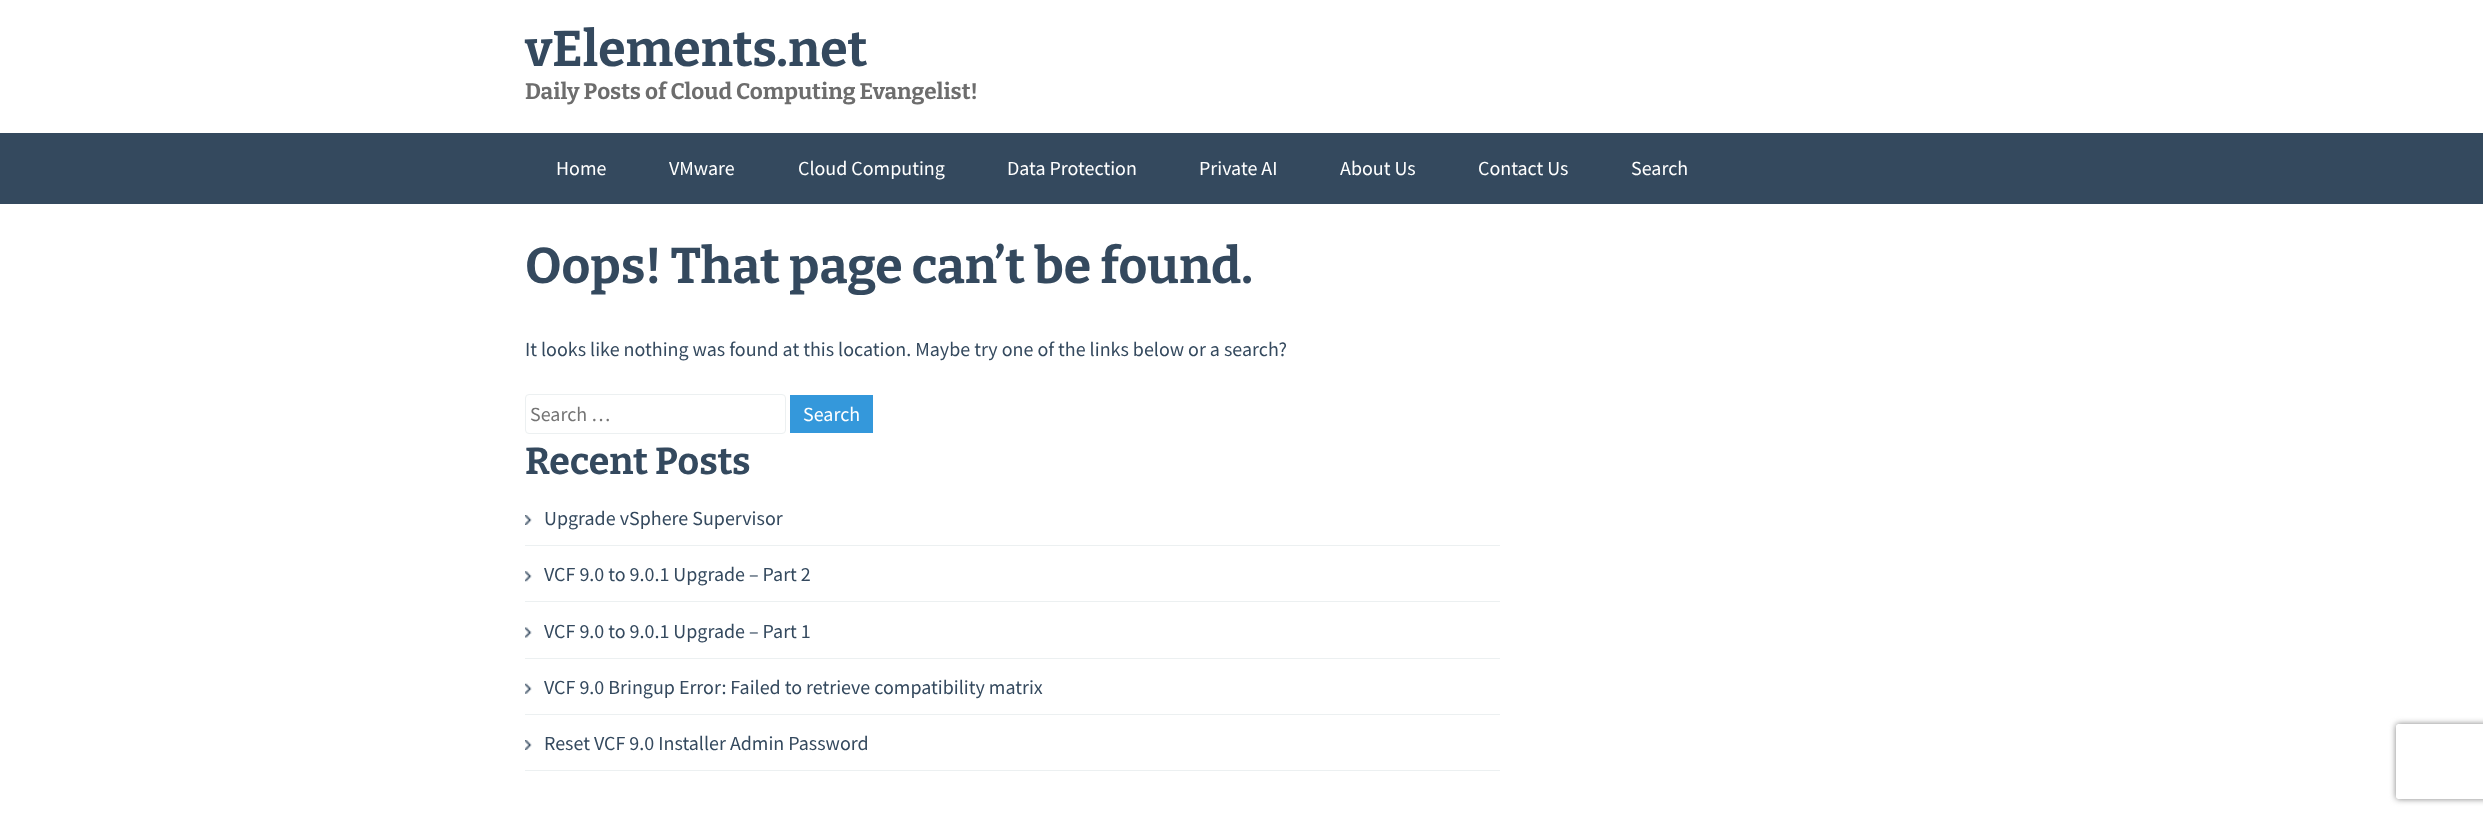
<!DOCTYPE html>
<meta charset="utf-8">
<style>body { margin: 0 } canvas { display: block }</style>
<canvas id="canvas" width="2483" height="816"></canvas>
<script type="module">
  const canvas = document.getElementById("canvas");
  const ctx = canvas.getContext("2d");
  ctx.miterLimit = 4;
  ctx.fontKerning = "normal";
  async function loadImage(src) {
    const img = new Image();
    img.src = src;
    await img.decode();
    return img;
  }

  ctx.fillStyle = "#ffffff";
  ctx.fillRect(0, 0, 2483, 816);
  ctx.font = "bold 50px Bitter";
  ctx.fillStyle = "#34495e";
  ctx.fillText("vElements.net", 525, 66);
  ctx.font = "bold 22.5px Bitter";
  ctx.fillStyle = "#6d6d6d";
  ctx.fillText("Daily Posts of Cloud Computing Evangelist!", 525, 99);
  ctx.fillStyle = "#34495e";
  ctx.fillRect(0, 133, 2483, 71);
  ctx.font = "20px Source Sans Pro";
  ctx.fillStyle = "#ffffff";
  ctx.fillText("Home", 556, 175);
  ctx.fillText("VMware", 669, 175);
  ctx.fillText("Cloud Computing", 798, 175);
  ctx.fillText("Data Protection", 1007, 175);
  ctx.fillText("Private AI", 1199, 175);
  ctx.fillText("About Us", 1340, 175);
  ctx.fillText("Contact Us", 1478, 175);
  ctx.fillText("Search", 1631, 175);
  ctx.font = "bold 50px Bitter";
  ctx.fillStyle = "#34495e";
  ctx.fillText("Oops! That page can’t be found.", 525, 283);
  ctx.font = "20px Source Sans Pro";
  ctx.fillText("It looks like nothing was found at this location. Maybe try one of the links below or a search?", 525, 356);
  ctx.beginPath();
  ctx.roundRect(525.5, 394.5, 260, 39, 3.5);
  ctx.strokeStyle = "#ecf0f1";
  ctx.stroke();
  ctx.fillStyle = "#757575";
  ctx.fillText("Search …", 530, 421);
  ctx.fillStyle = "#3498db";
  ctx.fillRect(790, 395, 83, 38);
  ctx.fillStyle = "#ffffff";
  ctx.fillText("Search", 803, 421);
  ctx.font = "bold 37.5px Bitter";
  ctx.fillStyle = "#34495e";
  ctx.fillText("Recent Posts", 525, 474);
  ctx.fillStyle = "#ecf0f1";
  ctx.fillRect(525, 545, 975, 1);
  ctx.drawImage(await loadImage("img1.png"), 525, 515, 7, 10);
  ctx.font = "20px Source Sans Pro";
  ctx.fillStyle = "#34495e";
  ctx.fillText("Upgrade vSphere Supervisor", 544, 525);
  ctx.fillStyle = "#ecf0f1";
  ctx.fillRect(525, 601, 975, 1);
  ctx.drawImage(await loadImage("img2.png"), 525, 571, 7, 11);
  ctx.fillStyle = "#34495e";
  ctx.fillText("VCF 9.0 to 9.0.1 Upgrade – Part 2", 544, 581);
  ctx.fillStyle = "#ecf0f1";
  ctx.fillRect(525, 658, 975, 1);
  ctx.drawImage(await loadImage("img3.png"), 525, 627, 7, 11);
  ctx.fillStyle = "#34495e";
  ctx.fillText("VCF 9.0 to 9.0.1 Upgrade – Part 1", 544, 638);
  ctx.fillStyle = "#ecf0f1";
  ctx.fillRect(525, 714, 975, 1);
  ctx.drawImage(await loadImage("img4.png"), 525, 683, 7, 11);
  ctx.fillStyle = "#34495e";
  ctx.fillText("VCF 9.0 Bringup Error: Failed to retrieve compatibility matrix", 544, 694);
  ctx.fillStyle = "#ecf0f1";
  ctx.fillRect(525, 770, 975, 1);
  ctx.drawImage(await loadImage("img1.png"), 525, 740, 7, 10);
  ctx.fillStyle = "#34495e";
  ctx.fillText("Reset VCF 9.0 Installer Admin Password", 544, 750);
  ctx.save();
  ctx.beginPath();
  ctx.moveTo(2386, 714);
  ctx.lineTo(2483, 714);
  ctx.lineTo(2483, 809);
  ctx.lineTo(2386, 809);
  ctx.closePath();
  ctx.moveTo(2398.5, 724);
  ctx.lineTo(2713.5, 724);
  ctx.bezierCurveTo(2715, 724, 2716, 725, 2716, 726.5);
  ctx.lineTo(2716, 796.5);
  ctx.bezierCurveTo(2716, 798, 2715, 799, 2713.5, 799);
  ctx.lineTo(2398.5, 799);
  ctx.bezierCurveTo(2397, 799, 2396, 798, 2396, 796.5);
  ctx.lineTo(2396, 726.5);
  ctx.bezierCurveTo(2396, 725, 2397, 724, 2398.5, 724);
  ctx.closePath();
  ctx.clip("evenodd");
  ctx.fillStyle = "#808080";
  ctx.filter = "blur(3px)";
  ctx.beginPath();
  ctx.roundRect(2396, 724, 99, 75, 2.5);
  ctx.fill();
  ctx.filter = "none";
  ctx.restore();
</script>
